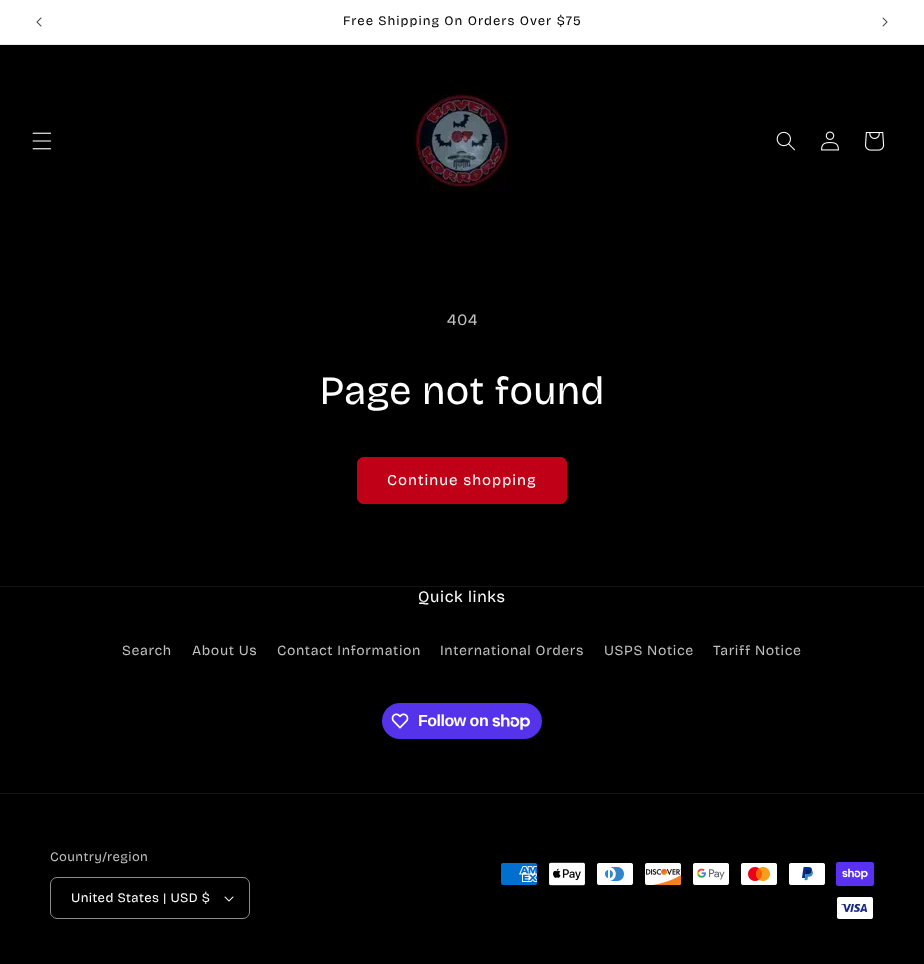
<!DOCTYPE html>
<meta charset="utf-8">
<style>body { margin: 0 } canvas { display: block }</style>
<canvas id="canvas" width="924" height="964"></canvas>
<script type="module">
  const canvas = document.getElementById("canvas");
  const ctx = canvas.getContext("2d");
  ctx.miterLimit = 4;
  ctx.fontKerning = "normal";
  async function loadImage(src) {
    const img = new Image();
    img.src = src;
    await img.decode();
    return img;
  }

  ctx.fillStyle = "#000000";
  ctx.fillRect(0, 0, 924, 964);
  ctx.fillStyle = "#ffffff";
  ctx.fillRect(0, 0, 924, 44);
  ctx.fillStyle = "#ebebeb";
  ctx.fillRect(0, 44, 924, 1);
  ctx.drawImage(await loadImage("img1.png"), 36, 17, 6, 10);
  ctx.letterSpacing = "1px";
  ctx.font = "13px 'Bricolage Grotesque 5'";
  ctx.fillStyle = "#000000";
  ctx.fillText("Free Shipping On Orders Over $75", 343, 25);
  ctx.drawImage(await loadImage("img2.png"), 882, 17, 6, 10);
  ctx.drawImage(await loadImage("img3.png"), 32, 132, 20, 18);
  ctx.drawImage(await loadImage("img4.png"), 413, 94, 98, 97);
  ctx.drawImage(await loadImage("img5.png"), 776, 131, 19, 20);
  ctx.drawImage(await loadImage("img6.png"), 821, 131, 18, 20);
  ctx.drawImage(await loadImage("img7.png"), 865, 132, 20, 19);
  ctx.letterSpacing = "0.6px";
  ctx.font = "16px Bricolage Grotesque";
  ctx.fillStyle = "#bfbfbf";
  ctx.fillText("404", 447, 325);
  ctx.font = "40px 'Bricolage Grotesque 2'";
  ctx.fillStyle = "#ffffff";
  ctx.fillText("Page not found", 320, 404);
  ctx.fillStyle = "#c00017";
  ctx.beginPath();
  ctx.roundRect(357, 457, 210, 47, 7);
  ctx.fill();
  ctx.beginPath();
  ctx.roundRect(357.5, 457.5, 209, 46, 6.5);
  ctx.strokeStyle = "#c00017";
  ctx.stroke();
  ctx.letterSpacing = "1px";
  ctx.font = "15px 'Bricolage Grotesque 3'";
  ctx.fillStyle = "#ffffff";
  ctx.fillText("Continue shopping", 387, 485);
  ctx.fillStyle = "#141414";
  ctx.fillRect(0, 586, 924, 1);
  ctx.letterSpacing = "0.6px";
  ctx.font = "16px Bricolage Grotesque";
  ctx.fillStyle = "#ffffff";
  ctx.fillText("Quick links", 418, 602);
  ctx.font = "14px 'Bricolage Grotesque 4'";
  ctx.fillStyle = "#bfbfbf";
  ctx.fillText("Search", 122, 655);
  ctx.fillText("About Us", 192, 655);
  ctx.fillText("Contact Information", 277, 655);
  ctx.fillText("International Orders", 440, 655);
  ctx.fillText("USPS Notice", 604, 655);
  ctx.fillText("Tariff Notice", 713, 655);
  ctx.fillStyle = "#5433eb";
  ctx.beginPath();
  ctx.roundRect(382, 703, 160, 36, 18);
  ctx.fill();
  ctx.drawImage(await loadImage("img8.png"), 391, 713, 18, 16);
  ctx.letterSpacing = "-0.5px";
  ctx.font = "bold 16px Liberation Sans";
  ctx.fillStyle = "#ffffff";
  ctx.fillText("Follow on", 418, 726);
  ctx.drawImage(await loadImage("img9.png"), 492, 714, 38, 16);
  ctx.fillStyle = "#141414";
  ctx.fillRect(0, 793, 924, 1);
  ctx.letterSpacing = "0.4px";
  ctx.font = "13px 'Bricolage Grotesque 5'";
  ctx.fillStyle = "#bfbfbf";
  ctx.fillText("Country/region", 50, 861);
  ctx.drawImage(await loadImage("img10.png"), 224, 896, 10, 6);
  ctx.beginPath();
  ctx.roundRect(50.5, 877.5, 199, 41, 6.5);
  ctx.strokeStyle = "#8c8c8c";
  ctx.stroke();
  ctx.fillStyle = "#ffffff";
  ctx.fillText("United States | USD $", 71, 902);
  ctx.drawImage(await loadImage("img11.png"), 501, 863, 36, 22);
  ctx.drawImage(await loadImage("img12.png"), 549, 862, 36, 24);
  ctx.drawImage(await loadImage("img13.png"), 597, 863, 36, 22);
  ctx.drawImage(await loadImage("img14.png"), 645, 863, 37, 22);
  ctx.drawImage(await loadImage("img15.png"), 693, 863, 36, 22);
  ctx.drawImage(await loadImage("img16.png"), 741, 863, 36, 22);
  ctx.drawImage(await loadImage("img17.png"), 789, 863, 36, 22);
  ctx.drawImage(await loadImage("img18.png"), 836, 862, 38, 24);
  ctx.drawImage(await loadImage("img19.png"), 837, 897, 36, 22);
</script>
